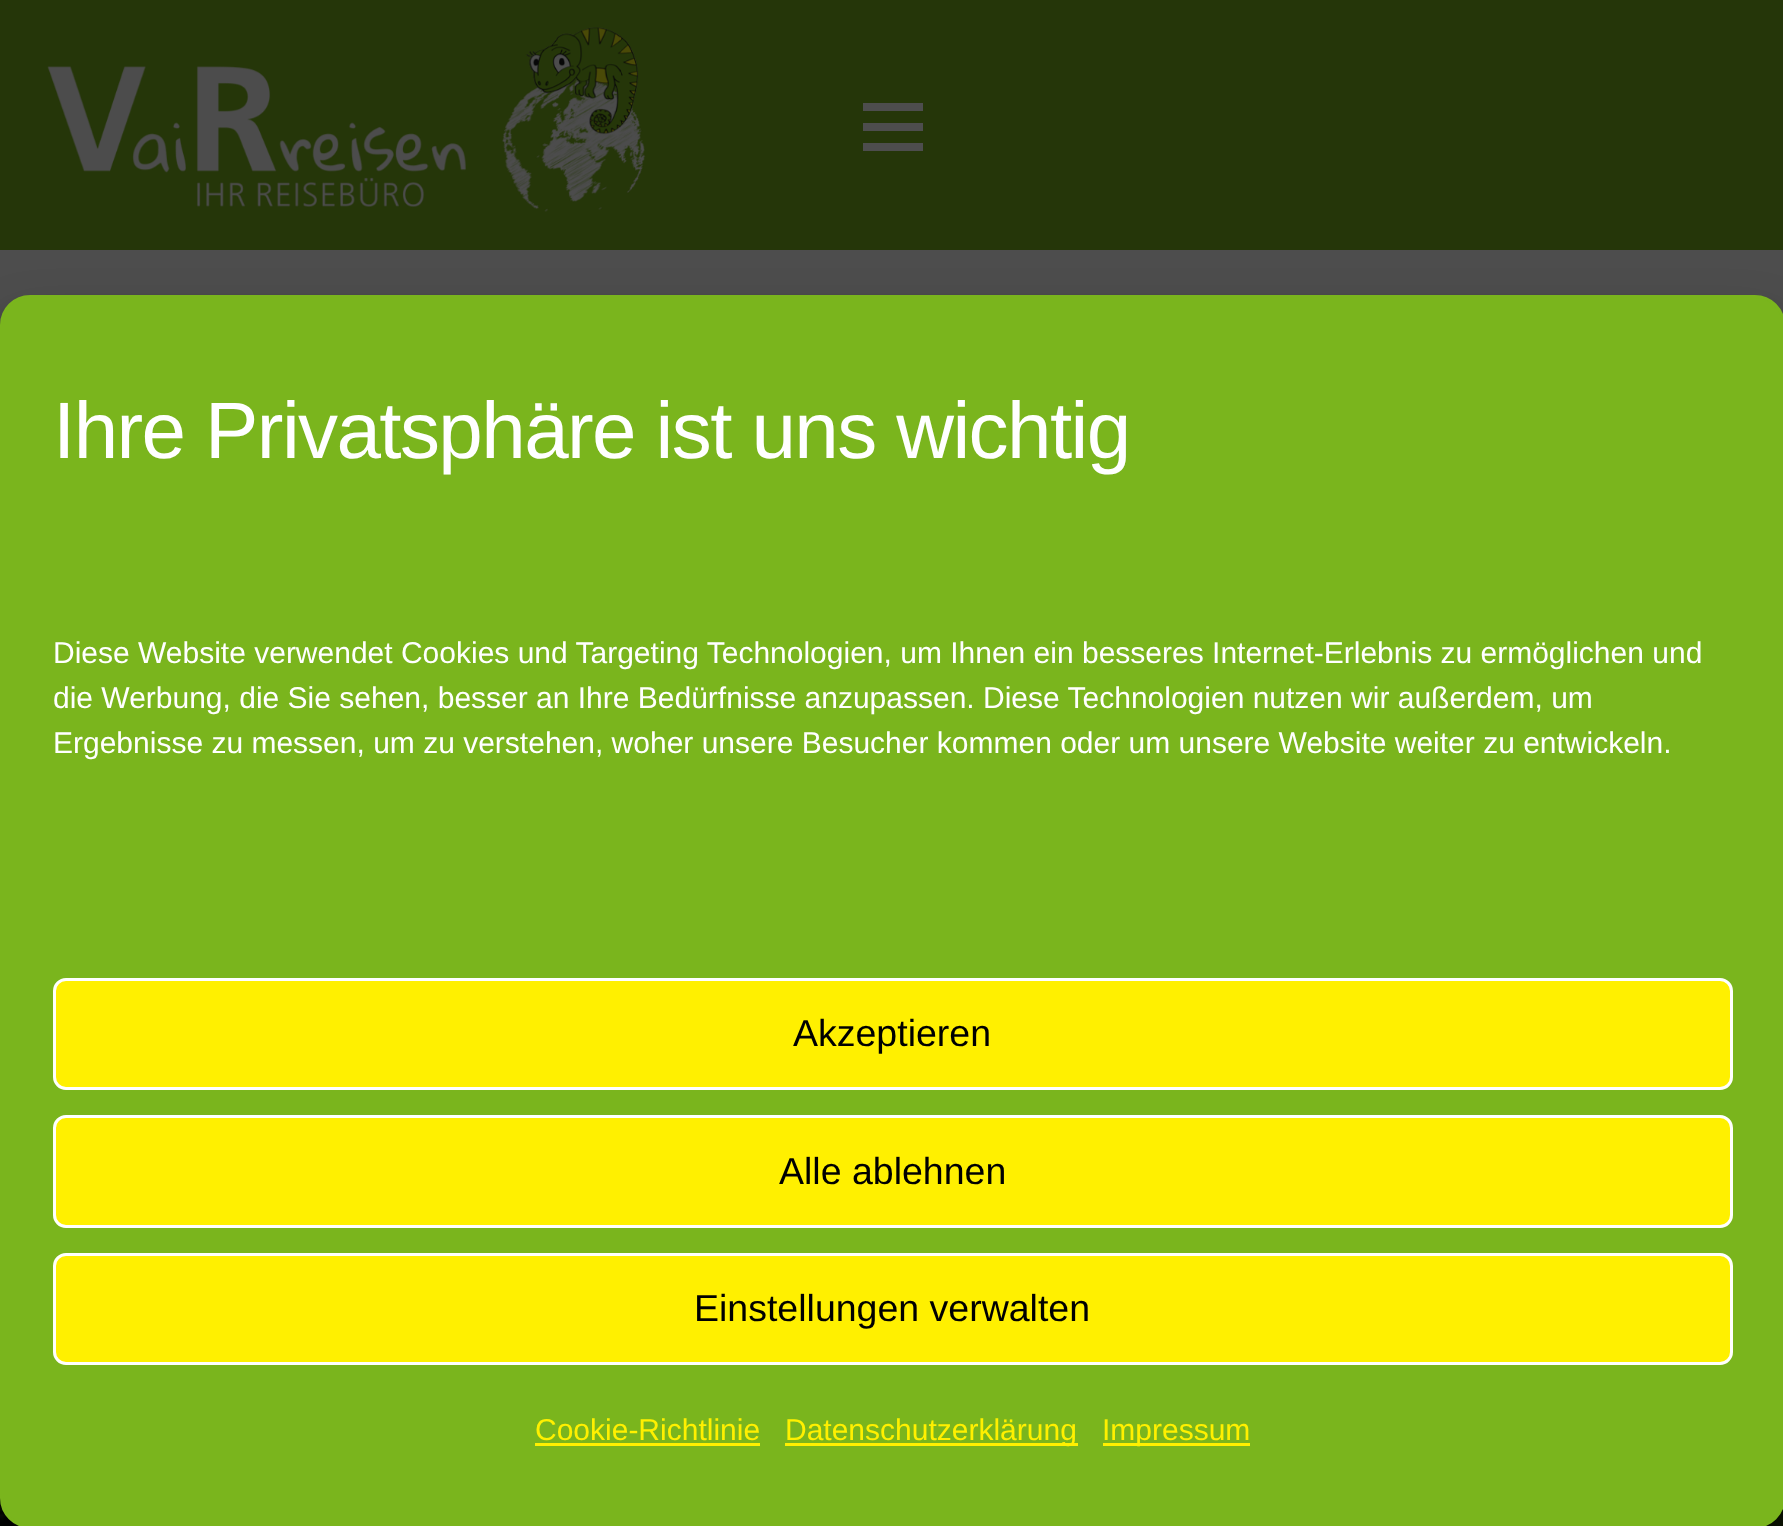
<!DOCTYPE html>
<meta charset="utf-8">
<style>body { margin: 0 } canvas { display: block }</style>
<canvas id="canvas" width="1783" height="1526"></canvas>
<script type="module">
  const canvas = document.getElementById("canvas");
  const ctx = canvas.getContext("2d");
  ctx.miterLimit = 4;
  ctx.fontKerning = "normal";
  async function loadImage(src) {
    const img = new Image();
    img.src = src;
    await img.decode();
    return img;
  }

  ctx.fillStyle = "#4d4d4d";
  ctx.fillRect(0, 0, 1783, 1526);
  ctx.fillStyle = "#253609";
  ctx.fillRect(0, 0, 1783, 250);
  ctx.drawImage(await loadImage("img1.png"), 47, 27, 599, 185);
  ctx.fillStyle = "#4d4d4d";
  ctx.fillRect(863, 123, 60, 8);
  ctx.fillRect(863, 103, 60, 8);
  ctx.fillRect(863, 143, 60, 8);
  ctx.drawImage(await loadImage("img2.png"), 0, 1498, 1783, 28);
  ctx.fillStyle = "rgba(0, 0, 0, 0.23)";
  ctx.filter = "blur(7.5px)";
  ctx.beginPath();
  ctx.roundRect(0, 310, 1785, 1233, 30);
  ctx.fill();
  ctx.filter = "none";
  ctx.fillStyle = "rgba(0, 0, 0, 0.19)";
  ctx.filter = "blur(25px)";
  ctx.beginPath();
  ctx.roundRect(0, 320, 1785, 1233, 30);
  ctx.fill();
  ctx.filter = "none";
  ctx.fillStyle = "#7ab51d";
  ctx.beginPath();
  ctx.roundRect(1.5, 296.5, 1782, 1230, 28.5);
  ctx.fill();
  ctx.strokeStyle = "#7ab51d";
  ctx.lineWidth = 3;
  ctx.stroke();
  ctx.letterSpacing = "-1.6px";
  ctx.font = "80px Liberation Sans";
  ctx.fillStyle = "#ffffff";
  ctx.fillText("Ihre Privatsphäre ist uns wichtig", 53, 458);
  ctx.letterSpacing = "0px";
  ctx.font = "30px Liberation Sans";
  ctx.fillText("Diese Website verwendet Cookies und Targeting Technologien, um Ihnen ein besseres Internet-Erlebnis zu ermöglichen und", 53, 663);
  ctx.fillText("die Werbung, die Sie sehen, besser an Ihre Bedürfnisse anzupassen. Diese Technologien nutzen wir außerdem, um", 53, 708);
  ctx.fillText("Ergebnisse zu messen, um zu verstehen, woher unsere Besucher kommen oder um unsere Website weiter zu entwickeln.", 53, 753);
  ctx.fillStyle = "#fff000";
  ctx.beginPath();
  ctx.roundRect(54.5, 979.5, 1677, 109, 11.5);
  ctx.fill();
  ctx.strokeStyle = "#ffffff";
  ctx.stroke();
  ctx.font = "37.5px Liberation Sans";
  ctx.fillStyle = "#000000";
  ctx.fillText("Akzeptieren", 793, 1046);
  ctx.fillStyle = "#fff000";
  ctx.beginPath();
  ctx.roundRect(54.5, 1116.5, 1677, 110, 11.5);
  ctx.fill();
  ctx.stroke();
  ctx.fillStyle = "#000000";
  ctx.fillText("Alle ablehnen", 779, 1184);
  ctx.fillStyle = "#fff000";
  ctx.beginPath();
  ctx.roundRect(54.5, 1254.5, 1677, 109, 11.5);
  ctx.fill();
  ctx.stroke();
  ctx.fillStyle = "#000000";
  ctx.fillText("Einstellungen verwalten", 694, 1321);
  ctx.font = "30px Liberation Sans";
  ctx.fillStyle = "#fff000";
  ctx.fillText("Cookie-Richtlinie", 535, 1440);
  ctx.fillRect(535, 1443, 225, 3);
  ctx.fillRect(785, 1443, 293, 3);
  ctx.fillText("Datenschutzerklärung", 785, 1440);
  ctx.fillRect(1103, 1443, 147, 3);
  ctx.fillText("Impressum", 1102, 1440);
</script>
